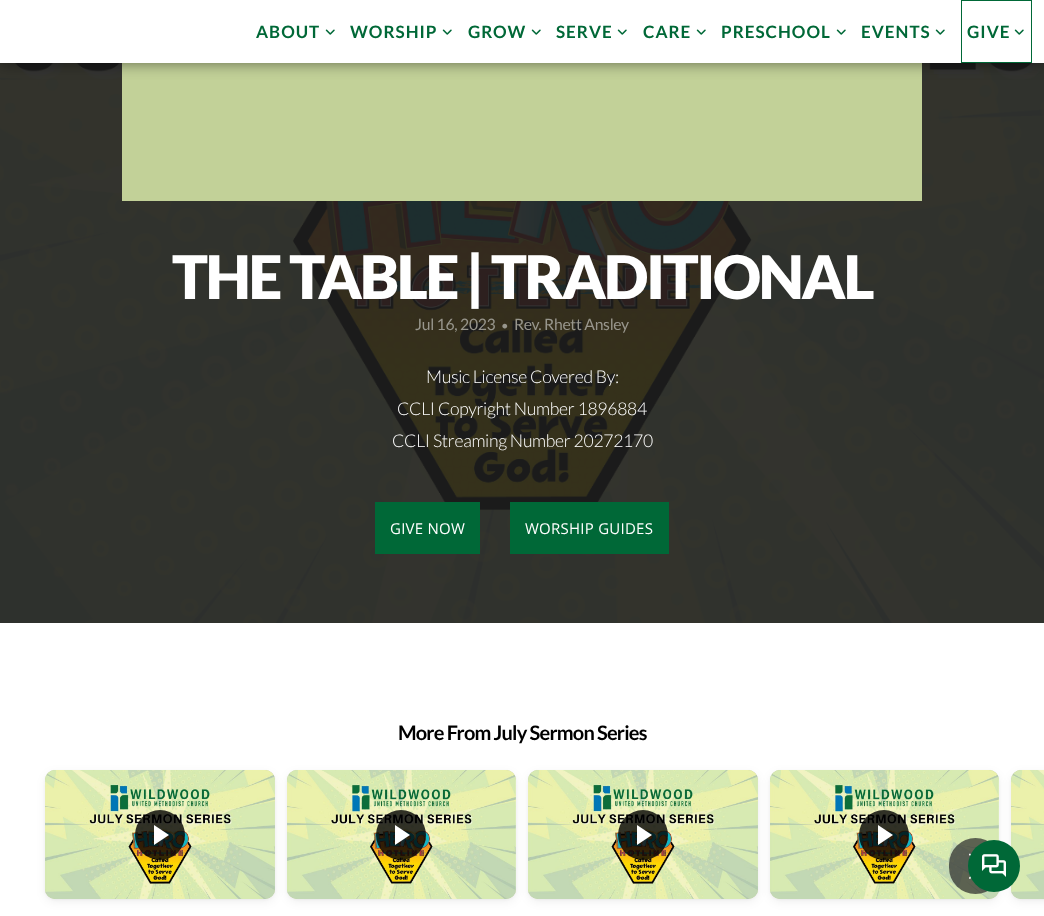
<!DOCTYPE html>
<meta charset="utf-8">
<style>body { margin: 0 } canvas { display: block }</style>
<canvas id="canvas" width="1044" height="916"></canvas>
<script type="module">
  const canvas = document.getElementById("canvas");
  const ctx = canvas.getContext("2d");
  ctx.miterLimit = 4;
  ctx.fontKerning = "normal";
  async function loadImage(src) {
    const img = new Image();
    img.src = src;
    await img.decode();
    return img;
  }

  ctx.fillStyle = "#ffffff";
  ctx.fillRect(0, 0, 1044, 916);
  ctx.drawImage(await loadImage("img2.png"), 0, 63, 1044, 560);
  ctx.fillStyle = "#c2d198";
  ctx.fillRect(122, 63, 800, 138);
  ctx.fillStyle = "rgba(0, 0, 0, 0.5)";
  ctx.filter = "blur(7.5px)";
  ctx.beginPath();
  ctx.rect(0, 0, 1044, 63);
  ctx.fill();
  ctx.filter = "none";
  ctx.fillStyle = "#ffffff";
  ctx.fillRect(0, 0, 1044, 63);
  ctx.letterSpacing = "1px";
  ctx.font = "bold 17px Lato";
  ctx.fillStyle = "#006837";
  ctx.fillText("ABOUT", 256, 38);
  ctx.drawImage(await loadImage("img1.png"), 325, 29, 10, 6);
  ctx.fillText("WORSHIP", 350, 38);
  ctx.drawImage(await loadImage("img1.png"), 442, 29, 10, 6);
  ctx.fillText("GROW", 468, 38);
  ctx.drawImage(await loadImage("img1.png"), 531, 29, 10, 6);
  ctx.fillText("SERVE", 556, 38);
  ctx.drawImage(await loadImage("img1.png"), 617, 29, 10, 6);
  ctx.fillText("CARE", 643, 38);
  ctx.drawImage(await loadImage("img1.png"), 696, 29, 10, 6);
  ctx.fillText("PRESCHOOL", 721, 38);
  ctx.drawImage(await loadImage("img1.png"), 836, 29, 10, 6);
  ctx.fillText("EVENTS", 861, 38);
  ctx.drawImage(await loadImage("img1.png"), 935, 29, 10, 6);
  ctx.strokeStyle = "#006837";
  ctx.strokeRect(961.5, 0.5, 70, 62);
  ctx.fillText("GIVE", 967, 38);
  ctx.drawImage(await loadImage("img1.png"), 1014, 29, 10, 6);
  ctx.letterSpacing = "-2.4px";
  ctx.font = "900 60px Lato";
  ctx.fillStyle = "#ffffff";
  ctx.fillText("THE TABLE | TRADITIONAL", 172, 299);
  ctx.letterSpacing = "-0.3px";
  ctx.font = "15.75px Lato";
  ctx.fillStyle = "#98968d";
  ctx.fillText("Jul 16, 2023", 415, 330);
  ctx.font = "13px Lato";
  ctx.fillText("•", 501, 330);
  ctx.font = "15.75px Lato";
  ctx.fillText("Rev. Rhett Ansley", 514, 330);
  ctx.font = "300 17.6px Lato";
  ctx.fillStyle = "#ffffff";
  ctx.fillText("Music License Covered By:", 426, 383);
  ctx.fillText("CCLI Copyright Number 1896884", 397, 415);
  ctx.fillText("CCLI Streaming Number 20272170", 392, 447);
  ctx.fillStyle = "#006837";
  ctx.fillRect(375, 502, 105, 52);
  ctx.letterSpacing = "0.25px";
  ctx.font = "15px Open Sans";
  ctx.fillStyle = "#ffffff";
  ctx.fillText("GIVE NOW", 390, 534);
  ctx.fillStyle = "#006837";
  ctx.fillRect(510, 502, 159, 52);
  ctx.fillStyle = "#ffffff";
  ctx.fillText("WORSHIP GUIDES", 525, 534);
  ctx.letterSpacing = "-0.8px";
  ctx.font = "bold 20px Lato";
  ctx.fillStyle = "#000000";
  ctx.fillText("More From July Sermon Series", 398, 740);
  ctx.fillStyle = "rgba(0, 0, 0, 0.04)";
  ctx.filter = "blur(1px)";
  ctx.beginPath();
  ctx.roundRect(45, 771, 230, 129, 10);
  ctx.fill();
  ctx.filter = "none";
  ctx.fillStyle = "rgba(0, 0, 0, 0.06)";
  ctx.filter = "blur(5px)";
  ctx.beginPath();
  ctx.roundRect(45, 773, 230, 129, 10);
  ctx.fill();
  ctx.filter = "none";
  ctx.fillStyle = "#c2d198";
  ctx.beginPath();
  ctx.roundRect(45, 770, 230, 129, 10);
  ctx.fill();
  ctx.drawImage(await loadImage("img3.png"), 45, 770, 230, 129);
  ctx.fillStyle = "rgba(0, 0, 0, 0.8)";
  ctx.beginPath();
  ctx.arc(160, 835, 25, 0, Math.PI * 2);
  ctx.fill();
  ctx.fillStyle = "#ffffff";
  ctx.beginPath();
  ctx.moveTo(154, 845);
  ctx.lineTo(154, 825);
  ctx.lineTo(169, 835);
  ctx.closePath();
  ctx.fill();
  ctx.fillStyle = "rgba(0, 0, 0, 0.04)";
  ctx.filter = "blur(1px)";
  ctx.beginPath();
  ctx.roundRect(287, 771, 229, 129, 10);
  ctx.fill();
  ctx.filter = "none";
  ctx.fillStyle = "rgba(0, 0, 0, 0.06)";
  ctx.filter = "blur(5px)";
  ctx.beginPath();
  ctx.roundRect(287, 773, 229, 129, 10);
  ctx.fill();
  ctx.filter = "none";
  ctx.fillStyle = "#c2d198";
  ctx.beginPath();
  ctx.roundRect(287, 770, 229, 129, 10);
  ctx.fill();
  ctx.drawImage(await loadImage("img4.png"), 287, 770, 229, 129);
  ctx.fillStyle = "rgba(0, 0, 0, 0.8)";
  ctx.beginPath();
  ctx.arc(401, 835, 25, 0, Math.PI * 2);
  ctx.fill();
  ctx.fillStyle = "#ffffff";
  ctx.beginPath();
  ctx.moveTo(395, 845);
  ctx.lineTo(395, 825);
  ctx.lineTo(410, 835);
  ctx.closePath();
  ctx.fill();
  ctx.fillStyle = "rgba(0, 0, 0, 0.04)";
  ctx.filter = "blur(1px)";
  ctx.beginPath();
  ctx.roundRect(528, 771, 230, 129, 10);
  ctx.fill();
  ctx.filter = "none";
  ctx.fillStyle = "rgba(0, 0, 0, 0.06)";
  ctx.filter = "blur(5px)";
  ctx.beginPath();
  ctx.roundRect(528, 773, 230, 129, 10);
  ctx.fill();
  ctx.filter = "none";
  ctx.fillStyle = "#c2d198";
  ctx.beginPath();
  ctx.roundRect(528, 770, 230, 129, 10);
  ctx.fill();
  ctx.drawImage(await loadImage("img5.png"), 528, 770, 230, 129);
  ctx.fillStyle = "rgba(0, 0, 0, 0.8)";
  ctx.beginPath();
  ctx.arc(643, 835, 25, 0, Math.PI * 2);
  ctx.fill();
  ctx.fillStyle = "#ffffff";
  ctx.beginPath();
  ctx.moveTo(637, 845);
  ctx.lineTo(637, 825);
  ctx.lineTo(652, 835);
  ctx.closePath();
  ctx.fill();
  ctx.fillStyle = "rgba(0, 0, 0, 0.04)";
  ctx.filter = "blur(1px)";
  ctx.beginPath();
  ctx.roundRect(770, 771, 229, 129, 10);
  ctx.fill();
  ctx.filter = "none";
  ctx.fillStyle = "rgba(0, 0, 0, 0.06)";
  ctx.filter = "blur(5px)";
  ctx.beginPath();
  ctx.roundRect(770, 773, 229, 129, 10);
  ctx.fill();
  ctx.filter = "none";
  ctx.fillStyle = "#c2d198";
  ctx.beginPath();
  ctx.roundRect(770, 770, 229, 129, 10);
  ctx.fill();
  ctx.drawImage(await loadImage("img4.png"), 770, 770, 229, 129);
  ctx.fillStyle = "rgba(0, 0, 0, 0.8)";
  ctx.beginPath();
  ctx.arc(884, 835, 25, 0, Math.PI * 2);
  ctx.fill();
  ctx.fillStyle = "#ffffff";
  ctx.beginPath();
  ctx.moveTo(878, 845);
  ctx.lineTo(878, 825);
  ctx.lineTo(893, 835);
  ctx.closePath();
  ctx.fill();
  ctx.fillStyle = "rgba(0, 0, 0, 0.04)";
  ctx.filter = "blur(1px)";
  ctx.beginPath();
  ctx.roundRect(1011, 771, 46, 129, 10);
  ctx.fill();
  ctx.filter = "none";
  ctx.fillStyle = "rgba(0, 0, 0, 0.06)";
  ctx.filter = "blur(5px)";
  ctx.beginPath();
  ctx.roundRect(1011, 773, 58, 129, 10);
  ctx.fill();
  ctx.filter = "none";
  ctx.fillStyle = "#c2d198";
  ctx.beginPath();
  ctx.roundRect(1011, 770, 33, 129, [10, 0, 0, 10]);
  ctx.fill();
  ctx.drawImage(await loadImage("img6.png"), 1011, 770, 33, 129);
  ctx.fillStyle = "rgba(40, 40, 40, 0.7)";
  ctx.beginPath();
  ctx.roundRect(949, 838, 53, 56, 26.5);
  ctx.fill();
  ctx.drawImage(await loadImage("img7.png"), 969, 853, 2, 26);
  ctx.fillStyle = "#006837";
  ctx.beginPath();
  ctx.arc(994, 866, 26, 0, Math.PI * 2);
  ctx.fill();
  ctx.drawImage(await loadImage("img8.png"), 982, 854, 24, 23);
</script>
